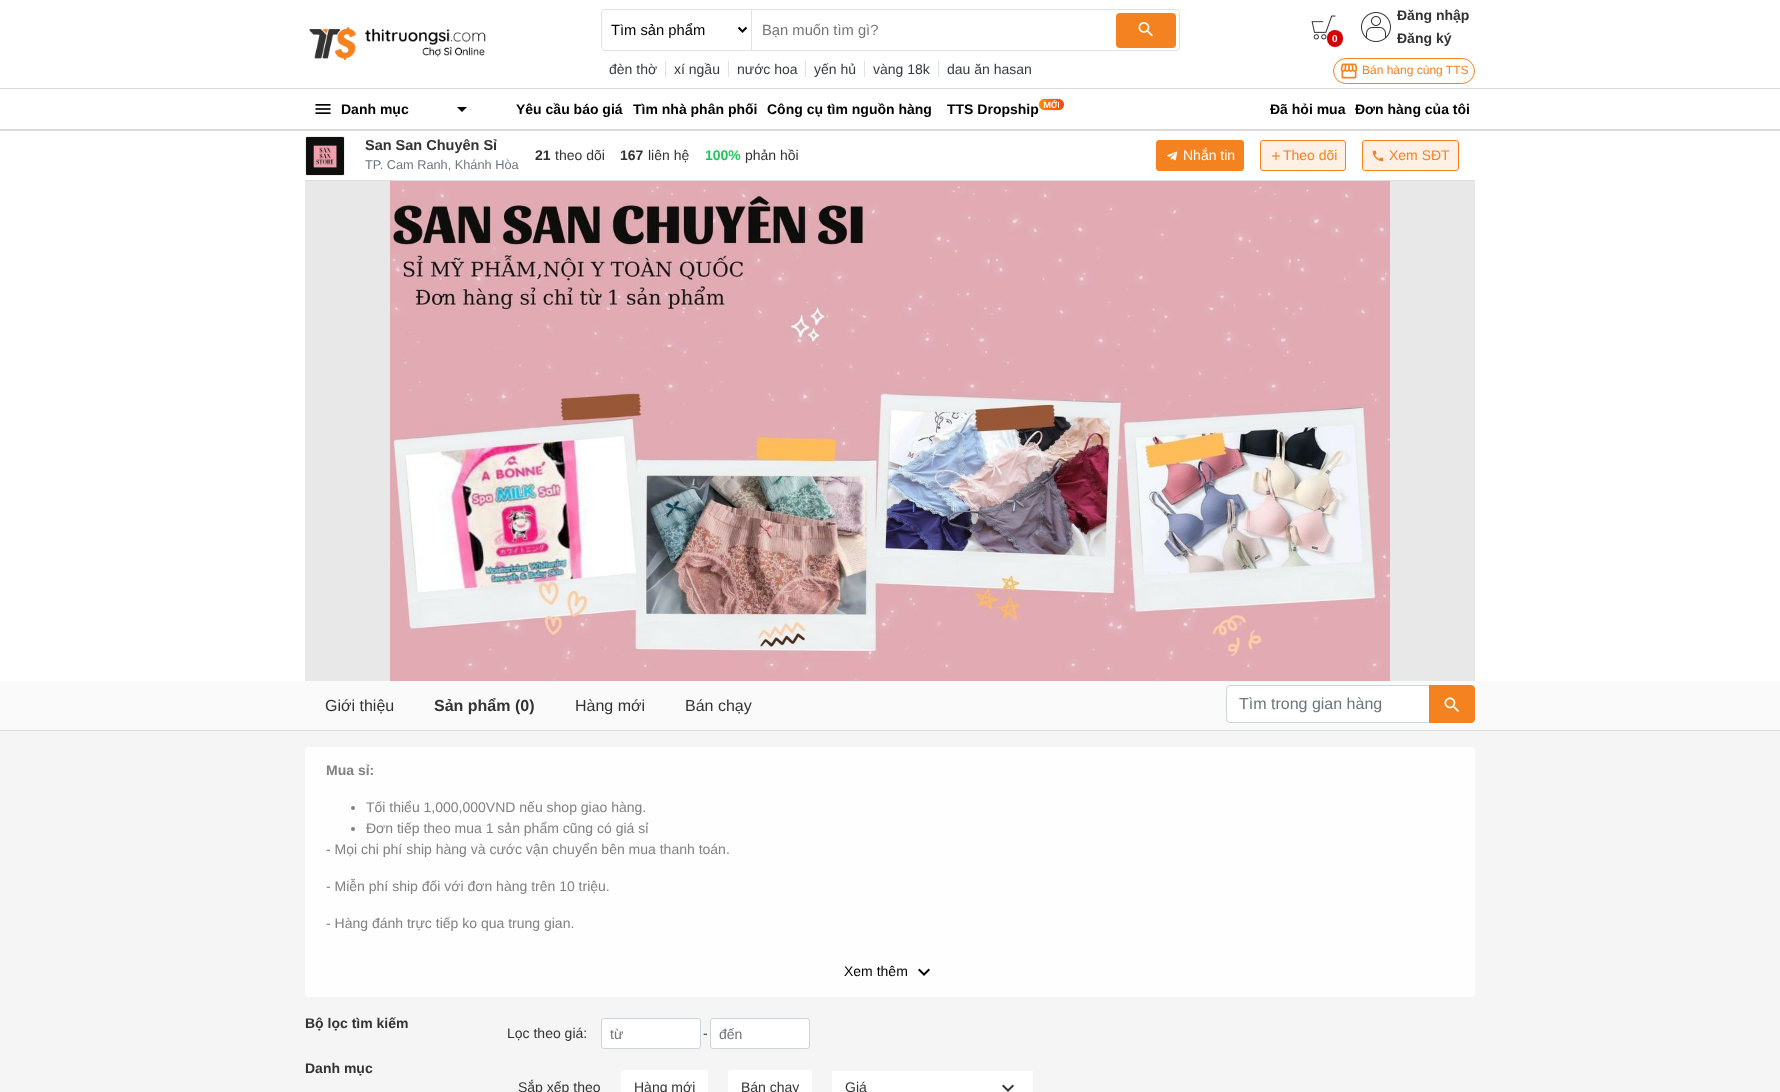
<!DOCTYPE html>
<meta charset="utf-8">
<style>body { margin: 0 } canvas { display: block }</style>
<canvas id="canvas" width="1780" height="1092"></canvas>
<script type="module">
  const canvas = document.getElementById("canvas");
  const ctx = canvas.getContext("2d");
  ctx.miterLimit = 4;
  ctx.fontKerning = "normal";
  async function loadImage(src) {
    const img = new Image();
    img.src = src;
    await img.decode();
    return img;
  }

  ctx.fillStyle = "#ffffff";
  ctx.fillRect(0, 0, 1780, 1092);
  ctx.drawImage(await loadImage("img1.png"), 309, 26, 177, 34);
  ctx.fillStyle = "#e1e1e1";
  ctx.beginPath();
  ctx.moveTo(605, 9);
  ctx.lineTo(751, 9);
  ctx.lineTo(751, 51);
  ctx.lineTo(605, 51);
  ctx.bezierCurveTo(603, 51, 601, 49, 601, 47);
  ctx.lineTo(601, 13);
  ctx.bezierCurveTo(601, 11, 603, 9, 605, 9);
  ctx.closePath();
  ctx.moveTo(605, 10);
  ctx.lineTo(751, 10);
  ctx.lineTo(751, 50);
  ctx.lineTo(605, 50);
  ctx.bezierCurveTo(603, 50, 602, 49, 602, 47);
  ctx.lineTo(602, 13);
  ctx.bezierCurveTo(602, 11, 603, 10, 605, 10);
  ctx.closePath();
  ctx.fill("evenodd");
  ctx.beginPath();
  ctx.moveTo(738.5, 27.5);
  ctx.lineTo(742.5, 31.5);
  ctx.lineTo(746.5, 27.5);
  ctx.strokeStyle = "#000000";
  ctx.lineWidth = 2;
  ctx.stroke();
  ctx.font = "14.75px Liberation Sans";
  ctx.fillStyle = "#000000";
  ctx.fillText("Tìm sản phẩm", 611, 35);
  ctx.beginPath();
  ctx.roundRect(751.5, 9.5, 428, 41, [0, 3.5, 3.5, 0]);
  ctx.strokeStyle = "#e1e1e1";
  ctx.lineWidth = 1;
  ctx.stroke();
  ctx.fillStyle = "#757575";
  ctx.fillText("Bạn muốn tìm gì?", 762, 35);
  ctx.fillStyle = "#f58220";
  ctx.beginPath();
  ctx.roundRect(1116, 13, 60, 35, 4);
  ctx.fill();
  ctx.drawImage(await loadImage("img2.png"), 1138, 22, 15, 15);
  ctx.font = "14px Liberation Sans";
  ctx.fillStyle = "#343a40";
  ctx.fillText("đèn thờ", 609, 74);
  ctx.fillStyle = "#dee2e6";
  ctx.fillRect(665, 61, 1, 16);
  ctx.fillStyle = "#343a40";
  ctx.fillText("xí ngầu", 674, 74);
  ctx.fillStyle = "#dee2e6";
  ctx.fillRect(728, 61, 1, 16);
  ctx.fillStyle = "#343a40";
  ctx.fillText("nước hoa", 737, 74);
  ctx.fillStyle = "#dee2e6";
  ctx.fillRect(805, 61, 1, 16);
  ctx.fillStyle = "#343a40";
  ctx.fillText("yến hủ", 814, 74);
  ctx.fillStyle = "#dee2e6";
  ctx.fillRect(864, 61, 1, 16);
  ctx.fillStyle = "#343a40";
  ctx.fillText("vàng 18k", 873, 74);
  ctx.fillStyle = "#dee2e6";
  ctx.fillRect(938, 61, 1, 16);
  ctx.fillStyle = "#343a40";
  ctx.fillText("dau ăn hasan", 947, 74);
  ctx.drawImage(await loadImage("img3.png"), 1311, 15, 25, 25);
  ctx.fillStyle = "#d50000";
  ctx.beginPath();
  ctx.roundRect(1327, 30, 16, 17, 8);
  ctx.fill();
  ctx.font = "bold 10px Liberation Sans";
  ctx.fillStyle = "#ffffff";
  ctx.fillText("0", 1332, 42);
  ctx.drawImage(await loadImage("img4.png"), 1361, 12, 30, 30);
  ctx.font = "bold 14px Liberation Sans";
  ctx.fillStyle = "#333333";
  ctx.fillText("Đăng nhập", 1397, 20);
  ctx.fillText("Đăng ký", 1397, 43);
  ctx.beginPath();
  ctx.roundRect(1333.5, 58.5, 141, 25, 12.5);
  ctx.strokeStyle = "#f58220";
  ctx.stroke();
  ctx.drawImage(await loadImage("img5.png"), 1340, 63, 18, 16);
  ctx.font = "12px Liberation Sans";
  ctx.fillStyle = "#f58220";
  ctx.fillText("Bán hàng cùng TTS", 1362, 74);
  ctx.fillStyle = "#d9d9d9";
  ctx.fillRect(0, 88, 1780, 1);
  ctx.fillRect(0, 129, 1780, 1);
  ctx.drawImage(await loadImage("img6.png"), 315, 104, 16, 10);
  ctx.font = "bold 14px Liberation Sans";
  ctx.fillStyle = "#000000";
  ctx.fillText("Danh mục", 341, 114);
  ctx.beginPath();
  ctx.moveTo(457, 107);
  ctx.lineTo(462, 112);
  ctx.lineTo(467, 107);
  ctx.closePath();
  ctx.fill();
  ctx.fillText("Yêu cầu báo giá", 516, 114);
  ctx.fillText("Tìm nhà phân phối", 633, 114);
  ctx.fillText("Công cụ tìm nguồn hàng", 767, 114);
  ctx.fillText("TTS Dropship", 947, 114);
  ctx.drawImage(await loadImage("img7.png"), 1039, 98, 25, 13);
  ctx.fillText("Đã hỏi mua", 1270, 114);
  ctx.fillText("Đơn hàng của tôi", 1355, 114);
  ctx.fillStyle = "#f5f5f5";
  ctx.fillRect(0, 731, 1780, 361);
  ctx.fillStyle = "#dddddd";
  ctx.fillRect(0, 130, 1780, 1);
  ctx.fillRect(305, 180, 1170, 1);
  ctx.beginPath();
  ctx.roundRect(305.5, 136.5, 39, 39, 1.5);
  ctx.strokeStyle = "#eeeeee";
  ctx.stroke();
  ctx.drawImage(await loadImage("img8.png"), 306, 137, 38, 38);
  ctx.font = "bold 14.5px Liberation Sans";
  ctx.fillStyle = "#333333";
  ctx.fillText("San San Chuyên Sỉ", 365, 150);
  ctx.font = "12.75px Liberation Sans";
  ctx.fillStyle = "#6c757d";
  ctx.fillText("TP. Cam Ranh, Khánh Hòa", 365, 169);
  ctx.font = "bold 14px Liberation Sans";
  ctx.fillStyle = "#333333";
  ctx.fillText("21", 535, 160);
  ctx.font = "14px Liberation Sans";
  ctx.fillText("theo dõi", 555, 160);
  ctx.font = "bold 14px Liberation Sans";
  ctx.fillText("167", 620, 160);
  ctx.font = "14px Liberation Sans";
  ctx.fillText("liên hệ", 648, 160);
  ctx.font = "bold 14px Liberation Sans";
  ctx.fillStyle = "#22c55e";
  ctx.fillText("100%", 705, 160);
  ctx.font = "14px Liberation Sans";
  ctx.fillStyle = "#333333";
  ctx.fillText("phản hồi", 745, 160);
  ctx.fillStyle = "#f58220";
  ctx.beginPath();
  ctx.roundRect(1156.5, 140.5, 87, 30, 2.5);
  ctx.fill();
  ctx.strokeStyle = "#f58220";
  ctx.stroke();
  ctx.drawImage(await loadImage("img9.png"), 1166, 151, 12, 10);
  ctx.fillStyle = "#ffffff";
  ctx.fillText("Nhắn tin", 1183, 160);
  ctx.fillStyle = "#fff0e5";
  ctx.beginPath();
  ctx.roundRect(1260.5, 140.5, 85, 30, 2.5);
  ctx.fill();
  ctx.stroke();
  ctx.drawImage(await loadImage("img10.png"), 1271, 151, 10, 10);
  ctx.fillStyle = "#f58220";
  ctx.fillText("Theo dõi", 1283, 160);
  ctx.fillStyle = "#fff0e5";
  ctx.beginPath();
  ctx.roundRect(1362.5, 140.5, 96, 30, 2.5);
  ctx.fill();
  ctx.stroke();
  ctx.drawImage(await loadImage("img11.png"), 1372, 150, 12, 12);
  ctx.fillStyle = "#f58220";
  ctx.fillText("Xem SĐT", 1389, 160);
  ctx.fillStyle = "#e8e8e8";
  ctx.fillRect(305, 181, 1170, 500);
  ctx.drawImage(await loadImage("img12.png"), 390, 181, 1000, 500);
  ctx.fillStyle = "#fafafa";
  ctx.fillRect(0, 681, 1780, 49);
  ctx.fillStyle = "#dddddd";
  ctx.fillRect(0, 730, 1780, 1);
  ctx.font = "16px Liberation Sans";
  ctx.fillStyle = "#333333";
  ctx.fillText("Giới thiệu", 325, 711);
  ctx.font = "bold 16px Liberation Sans";
  ctx.fillText("Sản phẩm (0)", 434, 711);
  ctx.font = "16px Liberation Sans";
  ctx.fillText("Hàng mới", 575, 711);
  ctx.fillText("Bán chạy", 685, 711);
  ctx.fillStyle = "#ffffff";
  ctx.beginPath();
  ctx.roundRect(1226.5, 685.5, 203, 37, [3.5, 0, 0, 3.5]);
  ctx.fill();
  ctx.strokeStyle = "#ced4da";
  ctx.stroke();
  ctx.fillStyle = "#6c757d";
  ctx.fillText("Tìm trong gian hàng", 1239, 709);
  ctx.fillStyle = "#f58220";
  ctx.beginPath();
  ctx.roundRect(1429.5, 685.5, 45, 37, [0, 3.5, 3.5, 0]);
  ctx.fill();
  ctx.strokeStyle = "#f58220";
  ctx.stroke();
  ctx.drawImage(await loadImage("img13.png"), 1444, 697, 15, 15);
  ctx.fillStyle = "#fefefe";
  ctx.beginPath();
  ctx.roundRect(305, 747, 1170, 250, 4);
  ctx.fill();
  ctx.font = "bold 14px Liberation Sans";
  ctx.fillStyle = "#818182";
  ctx.fillText("Mua sỉ:", 326, 775);
  ctx.beginPath();
  ctx.arc(353, 808, 2, 0, Math.PI * 2);
  ctx.fill();
  ctx.font = "14px Liberation Sans";
  ctx.fillText("Tối thiểu 1,000,000VND nếu shop giao hàng.", 366, 812);
  ctx.beginPath();
  ctx.arc(353, 829, 2, 0, Math.PI * 2);
  ctx.fill();
  ctx.fillText("Đơn tiếp theo mua 1 sản phẩm cũng có giá sỉ", 366, 833);
  ctx.fillText("- Mọi chi phí ship hàng và cước vận chuyển bên mua thanh toán.", 326, 854);
  ctx.fillText("- Miễn phí ship đối với đơn hàng trên 10 triệu.", 326, 891);
  ctx.fillText("- Hàng đánh trực tiếp ko qua trung gian.", 326, 928);
  ctx.fillStyle = "#000000";
  ctx.fillText("Xem thêm", 844, 976);
  ctx.drawImage(await loadImage("img14.png"), 918, 968, 12, 8);
  ctx.font = "bold 14px Liberation Sans";
  ctx.fillStyle = "#333333";
  ctx.fillText("Bộ lọc tìm kiếm", 305, 1028);
  ctx.fillText("Danh mục", 305, 1073);
  ctx.font = "14px Liberation Sans";
  ctx.fillText("Lọc theo giá:", 507, 1038);
  ctx.fillStyle = "#ffffff";
  ctx.beginPath();
  ctx.roundRect(601.5, 1018.5, 99, 30, 2.5);
  ctx.fill();
  ctx.strokeStyle = "#ced4da";
  ctx.stroke();
  ctx.fillStyle = "#6c757d";
  ctx.fillText("từ", 610, 1039);
  ctx.fillStyle = "#333333";
  ctx.fillText("-", 703, 1038);
  ctx.fillStyle = "#ffffff";
  ctx.beginPath();
  ctx.roundRect(710.5, 1018.5, 99, 30, 2.5);
  ctx.fill();
  ctx.stroke();
  ctx.fillStyle = "#6c757d";
  ctx.fillText("đến", 719, 1039);
  ctx.fillStyle = "#333333";
  ctx.fillText("Sắp xếp theo", 518, 1092);
  ctx.fillStyle = "#ffffff";
  ctx.beginPath();
  ctx.roundRect(621, 1070, 87, 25, 3);
  ctx.fill();
  ctx.fillStyle = "#333333";
  ctx.fillText("Hàng mới", 634, 1092);
  ctx.fillStyle = "#ffffff";
  ctx.beginPath();
  ctx.roundRect(728, 1070, 84, 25, 3);
  ctx.fill();
  ctx.fillStyle = "#333333";
  ctx.fillText("Bán chạy", 741, 1092);
  ctx.fillStyle = "#ffffff";
  ctx.fillRect(832, 1071, 201, 21);
  ctx.fillStyle = "#333333";
  ctx.fillText("Giá", 845, 1092);
  ctx.drawImage(await loadImage("img15.png"), 1002, 1084, 12, 8);
</script>
